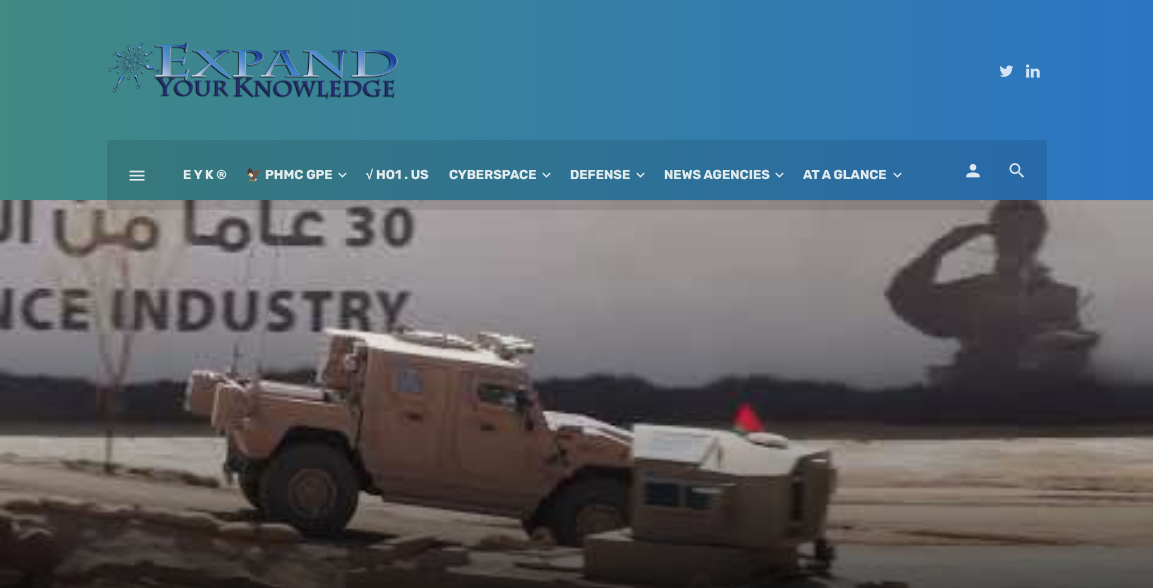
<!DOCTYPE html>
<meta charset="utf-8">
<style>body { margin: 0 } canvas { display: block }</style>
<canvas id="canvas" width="1153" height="588"></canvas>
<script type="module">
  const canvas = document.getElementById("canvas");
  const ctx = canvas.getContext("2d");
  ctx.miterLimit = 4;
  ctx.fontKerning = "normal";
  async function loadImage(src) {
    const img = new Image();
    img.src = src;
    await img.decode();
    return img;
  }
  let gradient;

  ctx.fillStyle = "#ffffff";
  ctx.fillRect(0, 0, 1153, 588);
  ctx.drawImage(await loadImage("img12.png"), 0, 200, 1153, 388);
  ctx.fillStyle = "rgba(0, 0, 0, 0.04)";
  ctx.fillRect(0, 200, 1153, 1);
  gradient = ctx.createLinearGradient(0, 100, 1153, 100);
  gradient.addColorStop(0, "#408984");
  gradient.addColorStop(1, "#2b75c4");
  ctx.fillStyle = gradient;
  ctx.fillRect(0, 0, 1153, 200);
  ctx.drawImage(await loadImage("img1.png"), 108, 41, 290, 59);
  ctx.drawImage(await loadImage("img2.png"), 999, 65, 15, 12);
  ctx.drawImage(await loadImage("img3.png"), 1026, 64, 14, 14);
  ctx.fillStyle = "rgba(0, 0, 0, 0.1)";
  ctx.beginPath();
  ctx.roundRect(107, 140, 940, 70, 4);
  ctx.fill();
  ctx.drawImage(await loadImage("img4.png"), 129, 170, 16, 11);
  ctx.font = "bold 13px Rubik";
  ctx.fillStyle = "#e1ebec";
  ctx.fillText("E Y K ®", 183, 179);
  ctx.font = "bold 13px Noto Color Emoji";
  ctx.fillText("🦅", 246, 179);
  ctx.font = "bold 13px Rubik";
  ctx.fillText("PHMC GPE", 265, 179);
  ctx.drawImage(await loadImage("img5.png"), 338, 172, 9, 6);
  ctx.font = "bold 13px Liberation Sans";
  ctx.fillText("√", 366, 179);
  ctx.font = "bold 13px Rubik";
  ctx.fillText("HO1 . US", 376, 179);
  ctx.fillText("CYBERSPACE", 449, 179);
  ctx.drawImage(await loadImage("img6.png"), 542, 172, 9, 6);
  ctx.fillText("DEFENSE", 570, 179);
  ctx.drawImage(await loadImage("img7.png"), 636, 172, 9, 6);
  ctx.fillText("NEWS AGENCIES", 664, 179);
  ctx.drawImage(await loadImage("img8.png"), 775, 172, 9, 6);
  ctx.fillText("AT A GLANCE", 803, 179);
  ctx.drawImage(await loadImage("img9.png"), 893, 172, 9, 6);
  ctx.drawImage(await loadImage("img10.png"), 966, 164, 14, 14);
  ctx.drawImage(await loadImage("img11.png"), 1009, 163, 15, 15);
</script>
